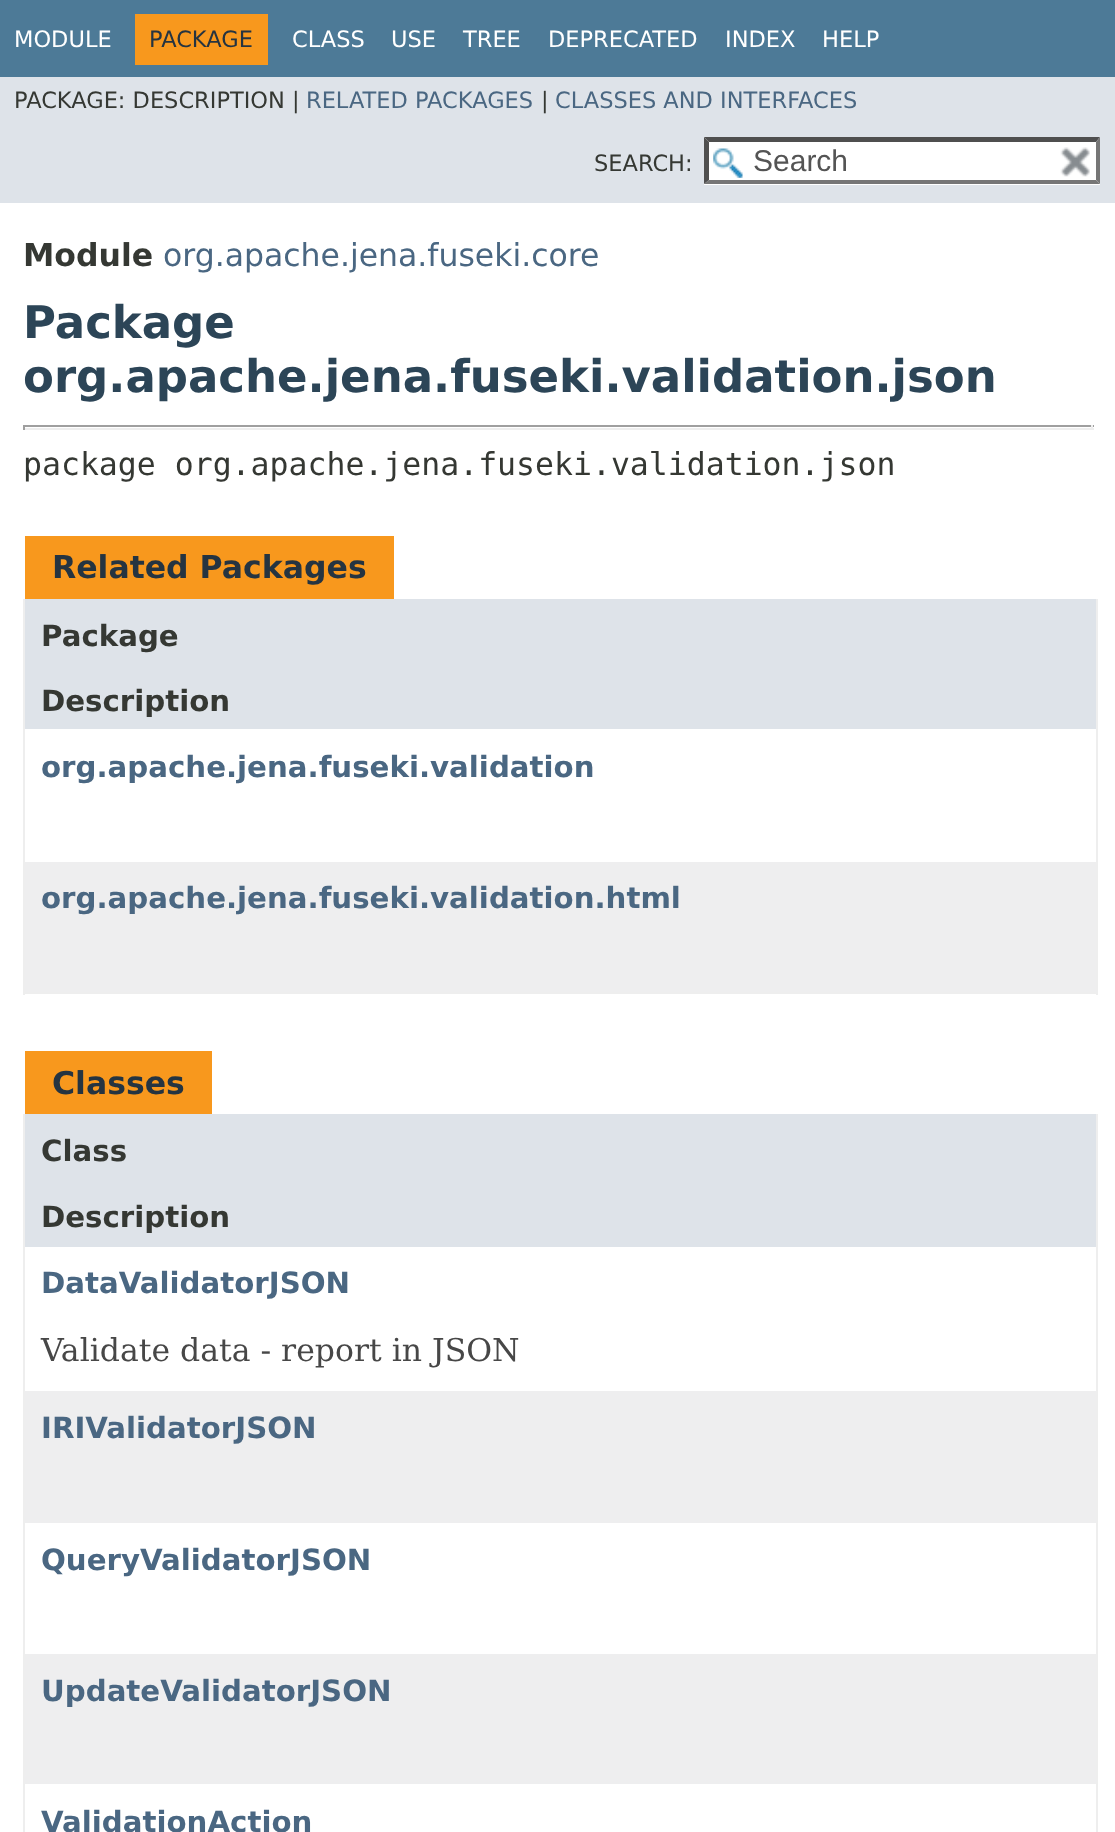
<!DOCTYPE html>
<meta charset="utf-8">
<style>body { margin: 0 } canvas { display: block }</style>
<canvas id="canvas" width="1115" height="1832"></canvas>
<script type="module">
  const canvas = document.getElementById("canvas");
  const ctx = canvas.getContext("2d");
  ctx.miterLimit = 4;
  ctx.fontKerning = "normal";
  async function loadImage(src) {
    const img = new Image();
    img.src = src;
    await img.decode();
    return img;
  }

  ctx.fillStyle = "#ffffff";
  ctx.fillRect(0, 0, 1115, 1832);
  ctx.fillStyle = "#4d7a97";
  ctx.fillRect(0, 0, 1115, 77);
  ctx.font = "22.5px DejaVu Sans";
  ctx.fillStyle = "#ffffff";
  ctx.fillText("MODULE", 14, 47);
  ctx.fillStyle = "#f8981d";
  ctx.fillRect(135, 14, 133, 51);
  ctx.fillStyle = "#253441";
  ctx.fillText("PACKAGE", 149, 47);
  ctx.fillStyle = "#ffffff";
  ctx.fillText("CLASS", 292, 47);
  ctx.fillText("USE", 391, 47);
  ctx.fillText("TREE", 463, 47);
  ctx.fillText("DEPRECATED", 548, 47);
  ctx.fillText("INDEX", 725, 47);
  ctx.fillText("HELP", 822, 47);
  ctx.fillStyle = "#dee3e9";
  ctx.fillRect(0, 77, 1115, 126);
  ctx.fillStyle = "#353833";
  ctx.fillText("PACKAGE: DESCRIPTION |", 14, 108);
  ctx.fillStyle = "#4a6782";
  ctx.fillText("RELATED PACKAGES", 306, 108);
  ctx.fillStyle = "#353833";
  ctx.fillText("|", 541, 108);
  ctx.fillStyle = "#4a6782";
  ctx.fillText("CLASSES AND INTERFACES", 555, 108);
  ctx.fillStyle = "#353833";
  ctx.fillText("SEARCH:", 594, 171);
  ctx.fillStyle = "#ffffff";
  ctx.fillRect(704, 137, 396, 48);
  ctx.drawImage(await loadImage("img1.png"), 713, 148, 30, 30);
  ctx.fillStyle = "#4f4f4f";
  ctx.beginPath();
  ctx.moveTo(704, 137);
  ctx.lineTo(1100, 137);
  ctx.lineTo(1096, 142);
  ctx.lineTo(709, 142);
  ctx.closePath();
  ctx.fill();
  ctx.fillStyle = "#767676";
  ctx.beginPath();
  ctx.moveTo(1100, 137);
  ctx.lineTo(1100, 184);
  ctx.lineTo(1096, 180);
  ctx.lineTo(1096, 142);
  ctx.closePath();
  ctx.fill();
  ctx.beginPath();
  ctx.moveTo(1100, 184);
  ctx.lineTo(704, 184);
  ctx.lineTo(709, 180);
  ctx.lineTo(1096, 180);
  ctx.closePath();
  ctx.fill();
  ctx.fillStyle = "#4f4f4f";
  ctx.beginPath();
  ctx.moveTo(704, 184);
  ctx.lineTo(704, 137);
  ctx.lineTo(709, 142);
  ctx.lineTo(709, 180);
  ctx.closePath();
  ctx.fill();
  ctx.font = "30px Liberation Sans";
  ctx.fillStyle = "#545454";
  ctx.fillText("Search", 753, 171);
  ctx.drawImage(await loadImage("img2.png"), 1060, 147, 30, 30);
  ctx.font = "bold 31.5px DejaVu Sans";
  ctx.fillStyle = "#353833";
  ctx.fillText("Module", 23, 266);
  ctx.font = "31.5px DejaVu Sans";
  ctx.fillStyle = "#4a6782";
  ctx.fillText("org.apache.jena.fuseki.core", 163, 266);
  ctx.font = "bold 45px DejaVu Sans";
  ctx.fillStyle = "#2c4557";
  ctx.fillText("Package", 23, 338);
  ctx.fillText("org.apache.jena.fuseki.validation.json", 23, 392);
  ctx.fillStyle = "#9f9f9f";
  ctx.fillRect(23, 425, 1071, 2);
  ctx.fillStyle = "#eeeeee";
  ctx.fillRect(1091, 425, 2, 5);
  ctx.fillRect(23, 428, 1071, 2);
  ctx.fillStyle = "#9f9f9f";
  ctx.fillRect(23, 425, 2, 5);
  ctx.font = "31.5px DejaVu Sans Mono";
  ctx.fillStyle = "#353833";
  ctx.fillText("package org.apache.jena.fuseki.validation.json", 23, 475);
  ctx.fillStyle = "#f8981d";
  ctx.fillRect(25, 536, 369, 63);
  ctx.font = "bold 31.5px DejaVu Sans";
  ctx.fillStyle = "#253441";
  ctx.fillText("Related Packages", 52, 578);
  ctx.fillStyle = "#eeeeee";
  ctx.fillRect(1096, 599, 2, 396);
  ctx.fillRect(23, 992, 1075, 2);
  ctx.fillRect(23, 599, 2, 396);
  ctx.fillStyle = "#dee3e9";
  ctx.fillRect(25, 599, 1071, 130);
  ctx.font = "bold 29.25px DejaVu Sans";
  ctx.fillStyle = "#353833";
  ctx.fillText("Package", 41, 646);
  ctx.fillText("Description", 41, 711);
  ctx.fillStyle = "#4a6782";
  ctx.fillText("org.apache.jena.fuseki.validation", 41, 777);
  ctx.fillStyle = "#eeeeef";
  ctx.fillRect(25, 862, 1071, 130);
  ctx.fillStyle = "#4a6782";
  ctx.fillText("org.apache.jena.fuseki.validation.html", 41, 908);
  ctx.fillStyle = "#f8981d";
  ctx.fillRect(25, 1051, 187, 63);
  ctx.font = "bold 31.5px DejaVu Sans";
  ctx.fillStyle = "#253441";
  ctx.fillText("Classes", 52, 1094);
  ctx.fillStyle = "#eeeeee";
  ctx.fillRect(1096, 1114, 2, 718);
  ctx.fillRect(23, 1114, 2, 718);
  ctx.fillStyle = "#dee3e9";
  ctx.fillRect(25, 1114, 1071, 133);
  ctx.font = "bold 29.25px DejaVu Sans";
  ctx.fillStyle = "#353833";
  ctx.fillText("Class", 41, 1161);
  ctx.fillText("Description", 41, 1227);
  ctx.fillStyle = "#4a6782";
  ctx.fillText("DataValidatorJSON", 41, 1293);
  ctx.font = "31.5px DejaVu Serif";
  ctx.fillStyle = "#474747";
  ctx.fillText("Validate data - report in JSON", 41, 1361);
  ctx.fillStyle = "#eeeeef";
  ctx.fillRect(25, 1391, 1071, 132);
  ctx.font = "bold 29.25px DejaVu Sans";
  ctx.fillStyle = "#4a6782";
  ctx.fillText("IRIValidatorJSON", 41, 1438);
  ctx.fillText("QueryValidatorJSON", 41, 1570);
  ctx.fillStyle = "#eeeeef";
  ctx.fillRect(25, 1654, 1071, 130);
  ctx.fillStyle = "#4a6782";
  ctx.fillText("UpdateValidatorJSON", 41, 1701);
  ctx.fillText("ValidationAction", 41, 1832);
</script>
